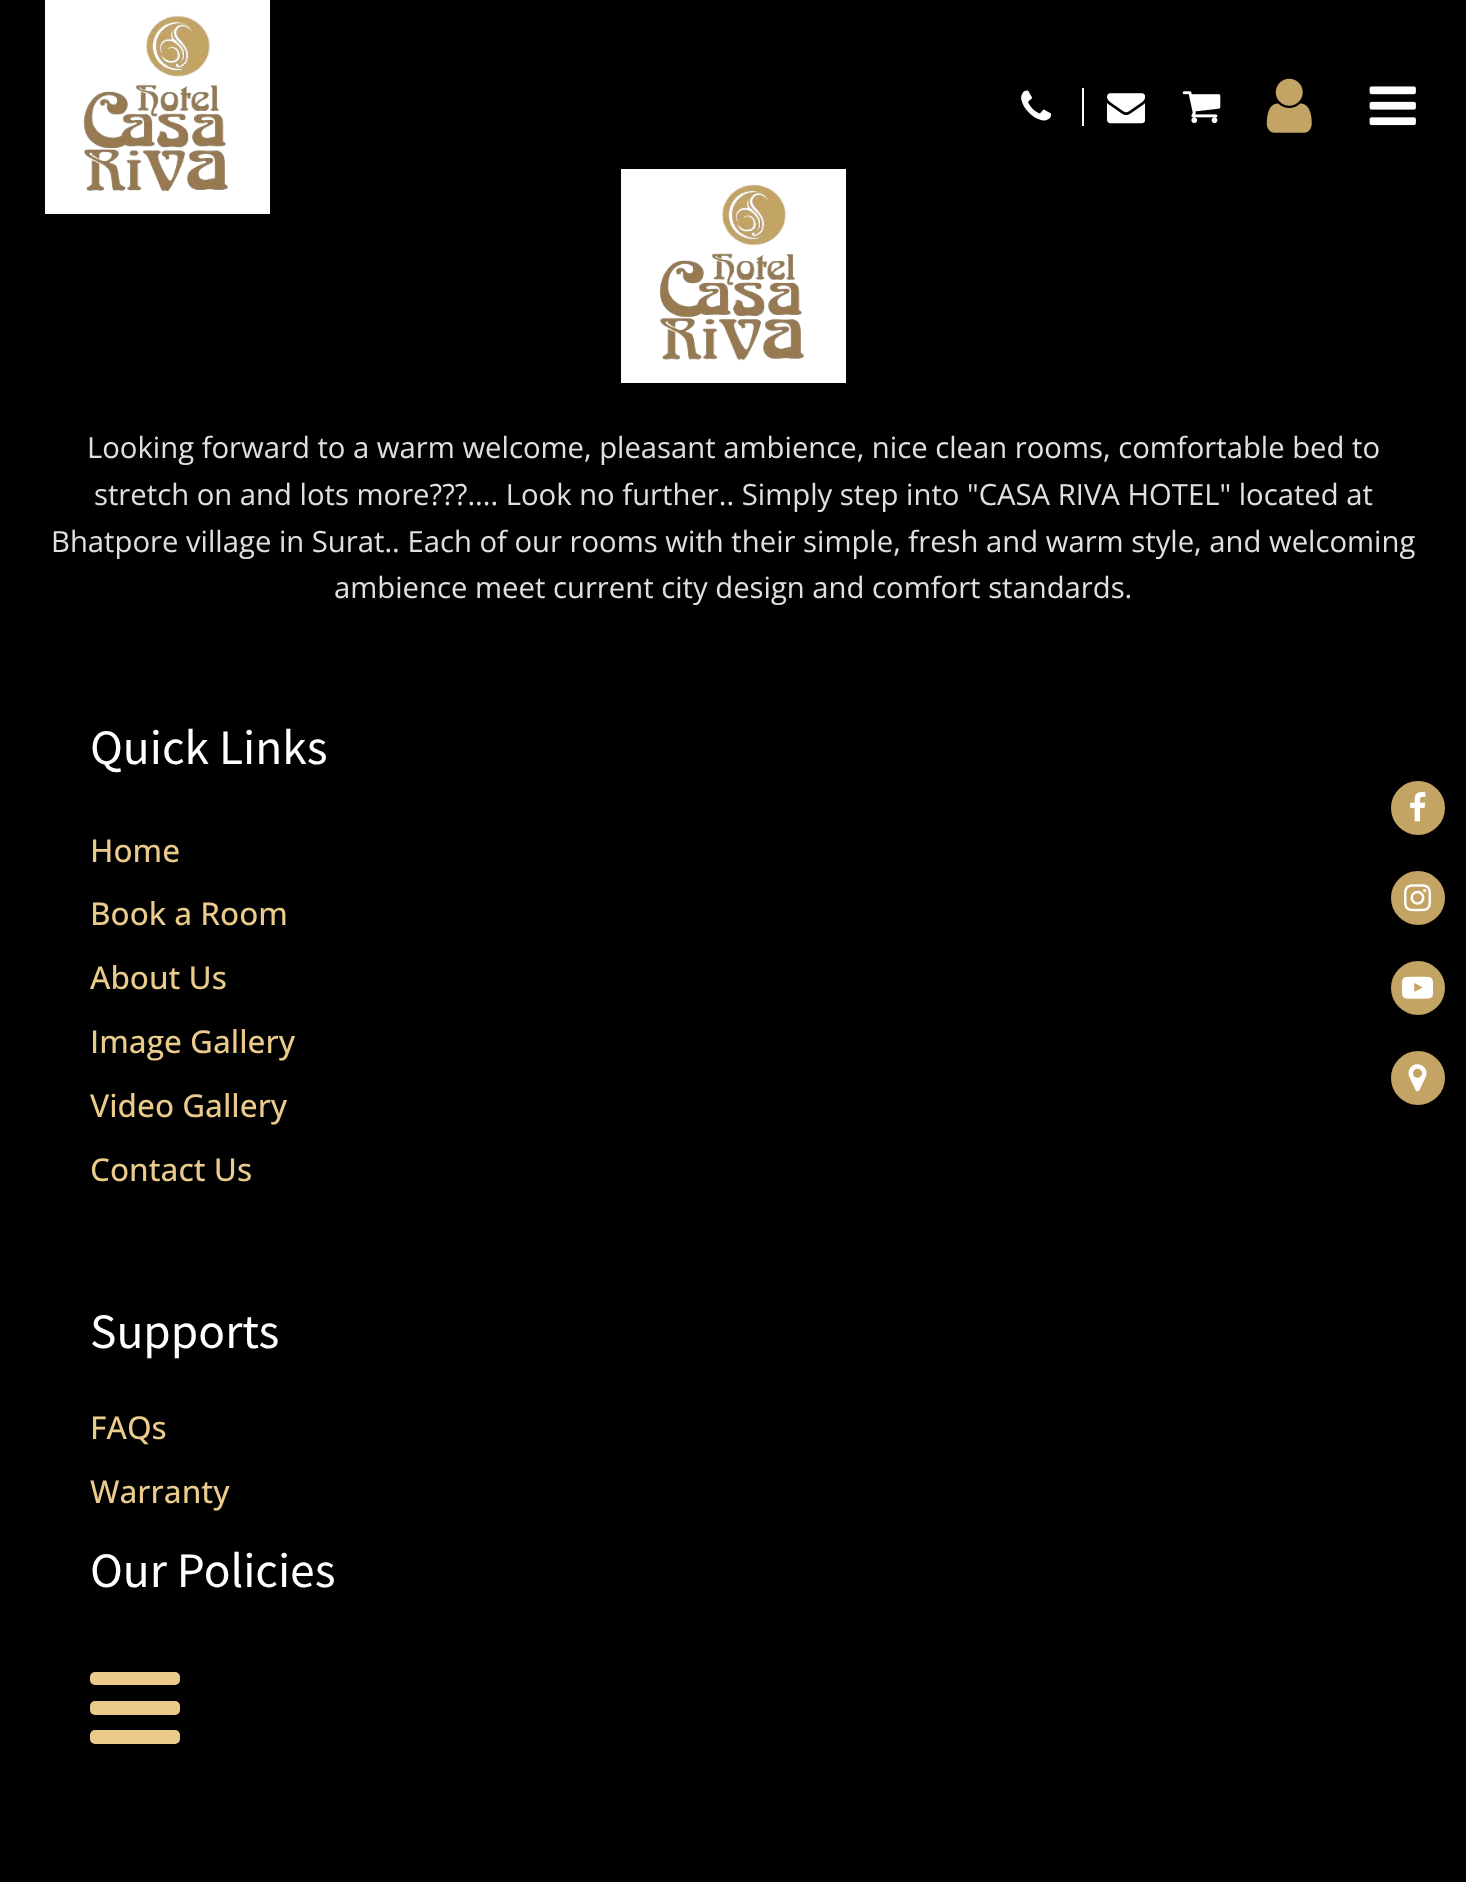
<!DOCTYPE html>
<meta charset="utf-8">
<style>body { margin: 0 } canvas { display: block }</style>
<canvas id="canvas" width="1466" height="1882"></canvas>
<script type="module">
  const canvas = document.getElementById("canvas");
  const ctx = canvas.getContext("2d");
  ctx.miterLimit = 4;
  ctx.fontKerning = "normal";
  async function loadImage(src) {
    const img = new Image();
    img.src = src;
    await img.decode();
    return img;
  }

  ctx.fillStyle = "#000000";
  ctx.fillRect(0, 0, 1466, 1882);
  ctx.fillStyle = "#ffffff";
  ctx.fillRect(45, 0, 225, 214);
  ctx.drawImage(await loadImage("img1.png"), 83, 15, 146, 177);
  ctx.drawImage(await loadImage("img2.png"), 1021, 90, 31, 31);
  ctx.fillRect(1082, 88, 2, 38);
  ctx.drawImage(await loadImage("img3.png"), 1107, 93, 38, 31);
  ctx.drawImage(await loadImage("img4.png"), 1182, 91, 39, 33);
  ctx.drawImage(await loadImage("img5.png"), 1266, 78, 46, 55);
  ctx.drawImage(await loadImage("img6.png"), 1369, 86, 47, 40);
  ctx.fillRect(621, 169, 225, 214);
  ctx.drawImage(await loadImage("img7.png"), 659, 184, 146, 177);
  ctx.font = "29.25px Open Sans";
  ctx.fillStyle = "#e0e0e0";
  ctx.fillText("Looking forward to a warm welcome, pleasant ambience, nice clean rooms, comfortable bed to", 87, 458);
  ctx.fillText("stretch on and lots more???.... Look no further.. Simply step into \"CASA RIVA HOTEL\" located at", 94, 505);
  ctx.fillText("Bhatpore village in Surat.. Each of our rooms with their simple, fresh and warm style, and welcoming", 51, 552);
  ctx.fillText("ambience meet current city design and comfort standards.", 334, 598);
  ctx.font = "49.5px Source Sans Pro";
  ctx.fillStyle = "#ffffff";
  ctx.fillText("Quick Links", 90, 764);
  ctx.font = "500 31.5px Open Sans";
  ctx.fillStyle = "#eacb8c";
  ctx.fillText("Home", 90, 862);
  ctx.fillText("Book a Room", 90, 925);
  ctx.fillText("About Us", 90, 989);
  ctx.fillText("Image Gallery", 90, 1053);
  ctx.fillText("Video Gallery", 90, 1117);
  ctx.fillText("Contact Us", 90, 1181);
  ctx.font = "49.5px Source Sans Pro";
  ctx.fillStyle = "#ffffff";
  ctx.fillText("Supports", 90, 1348);
  ctx.font = "500 31.5px Open Sans";
  ctx.fillStyle = "#eacb8c";
  ctx.fillText("FAQs", 90, 1439);
  ctx.fillText("Warranty", 90, 1503);
  ctx.font = "49.5px Source Sans Pro";
  ctx.fillStyle = "#ffffff";
  ctx.fillText("Our Policies", 90, 1587);
  ctx.fillStyle = "#eacb8c";
  ctx.beginPath();
  ctx.roundRect(90, 1672, 90, 13, 5);
  ctx.fill();
  ctx.beginPath();
  ctx.roundRect(90, 1701, 90, 14, 5);
  ctx.fill();
  ctx.beginPath();
  ctx.roundRect(90, 1730, 90, 14, 5);
  ctx.fill();
  ctx.fillStyle = "#c3a464";
  ctx.beginPath();
  ctx.arc(1418, 808, 26, 0, Math.PI * 2);
  ctx.fill();
  ctx.strokeStyle = "#c3a464";
  ctx.lineWidth = 2;
  ctx.stroke();
  ctx.drawImage(await loadImage("img8.png"), 1410, 792, 16, 30);
  ctx.beginPath();
  ctx.arc(1418, 898, 26, 0, Math.PI * 2);
  ctx.fill();
  ctx.stroke();
  ctx.drawImage(await loadImage("img9.png"), 1404, 884, 27, 28);
  ctx.beginPath();
  ctx.arc(1418, 988, 26, 0, Math.PI * 2);
  ctx.fill();
  ctx.stroke();
  ctx.drawImage(await loadImage("img10.png"), 1402, 976, 31, 23);
  ctx.beginPath();
  ctx.arc(1418, 1078, 26, 0, Math.PI * 2);
  ctx.fill();
  ctx.stroke();
  ctx.drawImage(await loadImage("img11.png"), 1408, 1064, 19, 28);
</script>
